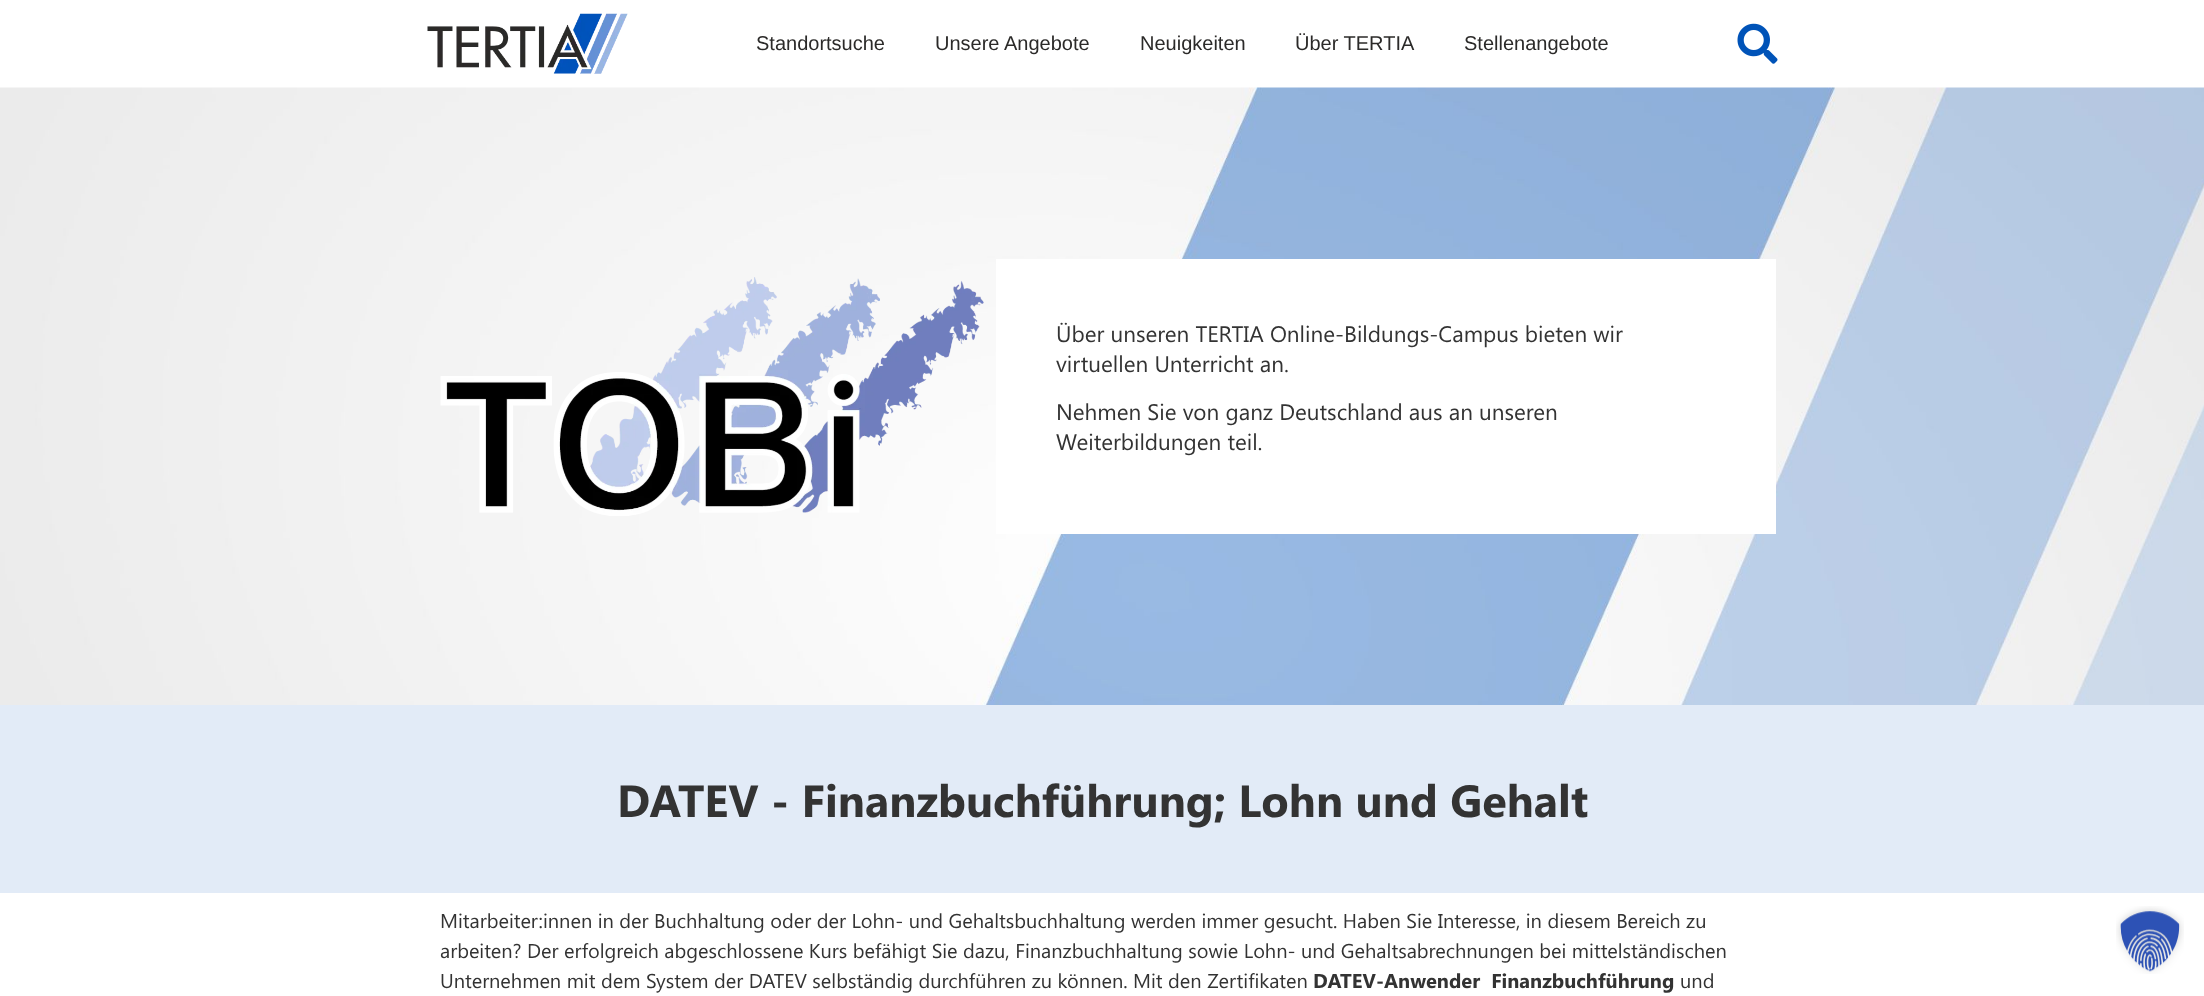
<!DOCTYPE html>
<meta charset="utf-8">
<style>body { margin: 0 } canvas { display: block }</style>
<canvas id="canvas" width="2204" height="996"></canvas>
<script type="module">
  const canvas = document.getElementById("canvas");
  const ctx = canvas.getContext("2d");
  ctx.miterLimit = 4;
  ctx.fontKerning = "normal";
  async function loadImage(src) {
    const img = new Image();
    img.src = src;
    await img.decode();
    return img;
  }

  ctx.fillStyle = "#ffffff";
  ctx.fillRect(0, 0, 2204, 996);
  ctx.drawImage(await loadImage("img1.png"), 427, 13, 201, 61);
  ctx.font = "20px Liberation Sans";
  ctx.fillStyle = "#2b2a29";
  ctx.fillText("Standortsuche", 756, 50);
  ctx.fillText("Unsere Angebote", 935, 50);
  ctx.fillText("Neuigkeiten", 1140, 50);
  ctx.fillText("Über TERTIA", 1295, 50);
  ctx.fillText("Stellenangebote", 1464, 50);
  ctx.drawImage(await loadImage("img2.png"), 1737, 23, 41, 41);
  ctx.drawImage(await loadImage("img3.png"), 0, 87, 2204, 618);
  ctx.drawImage(await loadImage("img4.png"), 440, 277, 544, 239);
  ctx.fillStyle = "#ffffff";
  ctx.fillRect(996, 259, 780, 275);
  ctx.font = "22.5px Segoe UI";
  ctx.fillStyle = "#333333";
  ctx.fillText("Über unseren TERTIA Online-Bildungs-Campus bieten wir", 1056, 342);
  ctx.fillText("virtuellen Unterricht an.", 1056, 372);
  ctx.fillText("Nehmen Sie von ganz Deutschland aus an unseren", 1056, 420);
  ctx.fillText("Weiterbildungen teil.", 1056, 450);
  ctx.fillStyle = "#e2ebf7";
  ctx.fillRect(0, 705, 2204, 188);
  ctx.font = "bold 45px Segoe UI";
  ctx.fillStyle = "#333333";
  ctx.fillText("DATEV - Finanzbuchführung; Lohn und Gehalt", 617, 817);
  ctx.font = "20px Segoe UI";
  ctx.fillText("Mitarbeiter:innen in der Buchhaltung oder der Lohn- und Gehaltsbuchhaltung werden immer gesucht. Haben Sie Interesse, in diesem Bereich zu", 440, 928);
  ctx.fillText("arbeiten? Der erfolgreich abgeschlossene Kurs befähigt Sie dazu, Finanzbuchhaltung sowie Lohn- und Gehaltsabrechnungen bei mittelständischen", 440, 958);
  ctx.fillText("Unternehmen mit dem System der DATEV selbständig durchführen zu können. Mit den Zertifikaten", 440, 988);
  ctx.font = "bold 20px Segoe UI";
  ctx.fillText("DATEV-Anwender  Finanzbuchführung", 1313, 988);
  ctx.font = "20px Segoe UI";
  ctx.fillText("und", 1680, 988);
  ctx.drawImage(await loadImage("img5.png"), 2116, 906, 68, 68);
</script>
